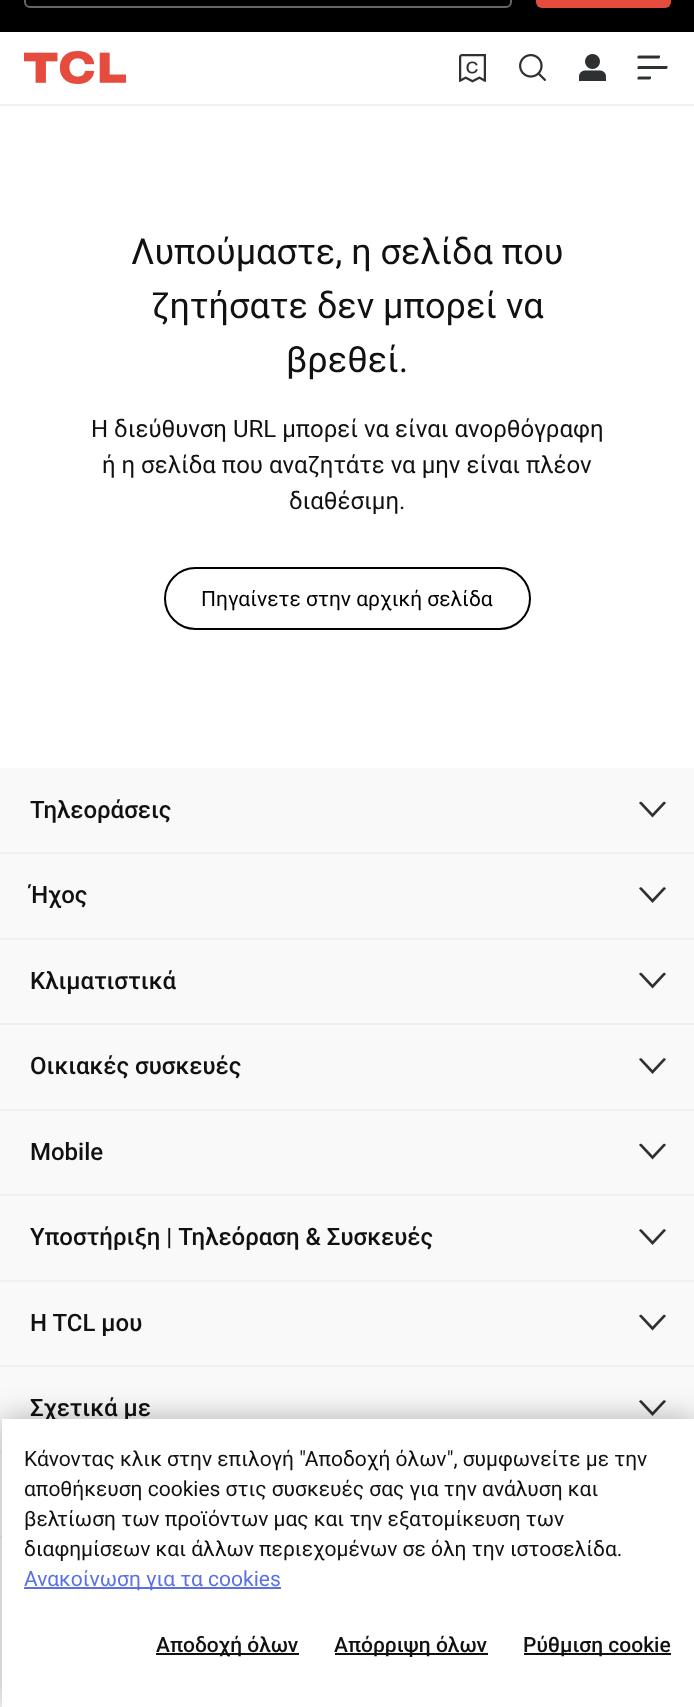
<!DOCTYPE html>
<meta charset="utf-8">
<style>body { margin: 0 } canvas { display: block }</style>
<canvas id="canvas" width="694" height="1707"></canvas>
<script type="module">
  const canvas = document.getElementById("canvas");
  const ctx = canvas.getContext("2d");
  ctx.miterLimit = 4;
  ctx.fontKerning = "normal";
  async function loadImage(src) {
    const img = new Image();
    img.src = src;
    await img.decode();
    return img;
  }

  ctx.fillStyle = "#ffffff";
  ctx.fillRect(0, 0, 694, 1707);
  ctx.fillStyle = "#000000";
  ctx.fillRect(0, 0, 694, 32);
  ctx.beginPath();
  ctx.roundRect(25, -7, 486, 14, 5);
  ctx.strokeStyle = "#666666";
  ctx.lineWidth = 2;
  ctx.stroke();
  ctx.fillStyle = "#e64c3d";
  ctx.beginPath();
  ctx.roundRect(536, -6, 135, 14, 6);
  ctx.fill();
  ctx.fillStyle = "#f0f0f0";
  ctx.fillRect(0, 104, 694, 2);
  ctx.drawImage(await loadImage("img1.png"), 24, 51, 102, 33);
  ctx.drawImage(await loadImage("img2.png"), 459, 54, 27, 29);
  ctx.drawImage(await loadImage("img3.png"), 519, 54, 27, 27);
  ctx.drawImage(await loadImage("img4.png"), 579, 54, 27, 27);
  ctx.drawImage(await loadImage("img5.png"), 637, 55, 31, 25);
  ctx.font = "36px Roboto";
  ctx.fillStyle = "#111111";
  ctx.fillText("Λυπούμαστε, η σελίδα που", 131, 264);
  ctx.fillText("ζητήσατε δεν μπορεί να", 151, 318);
  ctx.fillText("βρεθεί.", 286, 372);
  ctx.font = "24px Roboto";
  ctx.fillText("Η διεύθυνση URL μπορεί να είναι ανορθόγραφη", 91, 437);
  ctx.fillText("ή η σελίδα που αναζητάτε να μην είναι πλέον", 102, 473);
  ctx.fillText("διαθέσιμη.", 289, 509);
  ctx.beginPath();
  ctx.roundRect(165, 568, 365, 61, 30.5);
  ctx.strokeStyle = "#000000";
  ctx.stroke();
  ctx.font = "21px Roboto";
  ctx.fillStyle = "#000000";
  ctx.fillText("Πηγαίνετε στην αρχική σελίδα", 201, 606);
  ctx.fillStyle = "#f9f9f9";
  ctx.fillRect(0, 768, 694, 939);
  ctx.fillStyle = "#f0f0f0";
  ctx.fillRect(0, 852, 694, 2);
  ctx.font = "500 24px Roboto";
  ctx.fillStyle = "#111111";
  ctx.fillText("Τηλεοράσεις", 30, 818);
  ctx.drawImage(await loadImage("img6.png"), 639, 801, 27, 17);
  ctx.fillStyle = "#f0f0f0";
  ctx.fillRect(0, 938, 694, 2);
  ctx.fillStyle = "#111111";
  ctx.fillText("Ήχος", 30, 903);
  ctx.drawImage(await loadImage("img7.png"), 639, 887, 27, 16);
  ctx.fillStyle = "#f0f0f0";
  ctx.fillRect(0, 1023, 694, 2);
  ctx.fillStyle = "#111111";
  ctx.fillText("Κλιματιστικά", 30, 989);
  ctx.drawImage(await loadImage("img6.png"), 639, 972, 27, 17);
  ctx.fillStyle = "#f0f0f0";
  ctx.fillRect(0, 1109, 694, 2);
  ctx.fillStyle = "#111111";
  ctx.fillText("Οικιακές συσκευές", 30, 1074);
  ctx.drawImage(await loadImage("img7.png"), 639, 1058, 27, 16);
  ctx.fillStyle = "#f0f0f0";
  ctx.fillRect(0, 1194, 694, 2);
  ctx.fillStyle = "#111111";
  ctx.fillText("Mobile", 30, 1160);
  ctx.drawImage(await loadImage("img6.png"), 639, 1143, 27, 17);
  ctx.fillStyle = "#f0f0f0";
  ctx.fillRect(0, 1280, 694, 2);
  ctx.fillStyle = "#111111";
  ctx.fillText("Υποστήριξη | Τηλεόραση & Συσκευές", 30, 1245);
  ctx.drawImage(await loadImage("img7.png"), 639, 1229, 27, 16);
  ctx.fillStyle = "#f0f0f0";
  ctx.fillRect(0, 1365, 694, 2);
  ctx.fillStyle = "#111111";
  ctx.fillText("H TCL μου", 30, 1331);
  ctx.drawImage(await loadImage("img6.png"), 639, 1314, 27, 17);
  ctx.fillStyle = "#f0f0f0";
  ctx.fillRect(0, 1451, 2, 2);
  ctx.fillStyle = "#111111";
  ctx.fillText("Σχετικά με", 30, 1416);
  ctx.drawImage(await loadImage("img7.png"), 639, 1400, 27, 16);
  ctx.fillStyle = "#f0f0f0";
  ctx.fillRect(0, 1536, 2, 2);
  ctx.save();
  ctx.beginPath();
  ctx.moveTo(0, 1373);
  ctx.lineTo(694, 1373);
  ctx.lineTo(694, 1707);
  ctx.lineTo(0, 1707);
  ctx.closePath();
  ctx.moveTo(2, 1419);
  ctx.lineTo(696, 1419);
  ctx.lineTo(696, 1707);
  ctx.lineTo(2, 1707);
  ctx.closePath();
  ctx.clip("evenodd");
  ctx.fillStyle = "rgba(0, 0, 0, 0.3)";
  ctx.filter = "blur(15px)";
  ctx.beginPath();
  ctx.rect(2, 1419, 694, 288);
  ctx.fill();
  ctx.filter = "none";
  ctx.restore();
  ctx.fillStyle = "#ffffff";
  ctx.fillRect(2, 1419, 692, 288);
  ctx.font = "21px Roboto";
  ctx.fillStyle = "#111111";
  ctx.fillText("Κάνοντας κλικ στην επιλογή \"Αποδοχή όλων\", συμφωνείτε με την", 24, 1466);
  ctx.fillText("αποθήκευση cookies στις συσκευές σας για την ανάλυση και", 24, 1496);
  ctx.fillText("βελτίωση των προϊόντων μας και την εξατομίκευση των", 24, 1526);
  ctx.fillText("διαφημίσεων και άλλων περιεχομένων σε όλη την ιστοσελίδα.", 24, 1556);
  ctx.fillStyle = "#5971e5";
  ctx.fillRect(24, 1587, 257, 2);
  ctx.fillText("Ανακοίνωση για τα cookies", 24, 1586);
  ctx.fillStyle = "#111111";
  ctx.fillRect(156, 1653, 143, 2);
  ctx.font = "500 21px Roboto";
  ctx.fillText("Αποδοχή όλων", 156, 1652);
  ctx.fillRect(335, 1653, 153, 2);
  ctx.fillText("Απόρριψη όλων", 334, 1652);
  ctx.fillRect(524, 1653, 147, 2);
  ctx.fillText("Ρύθμιση cookie", 523, 1652);
</script>
